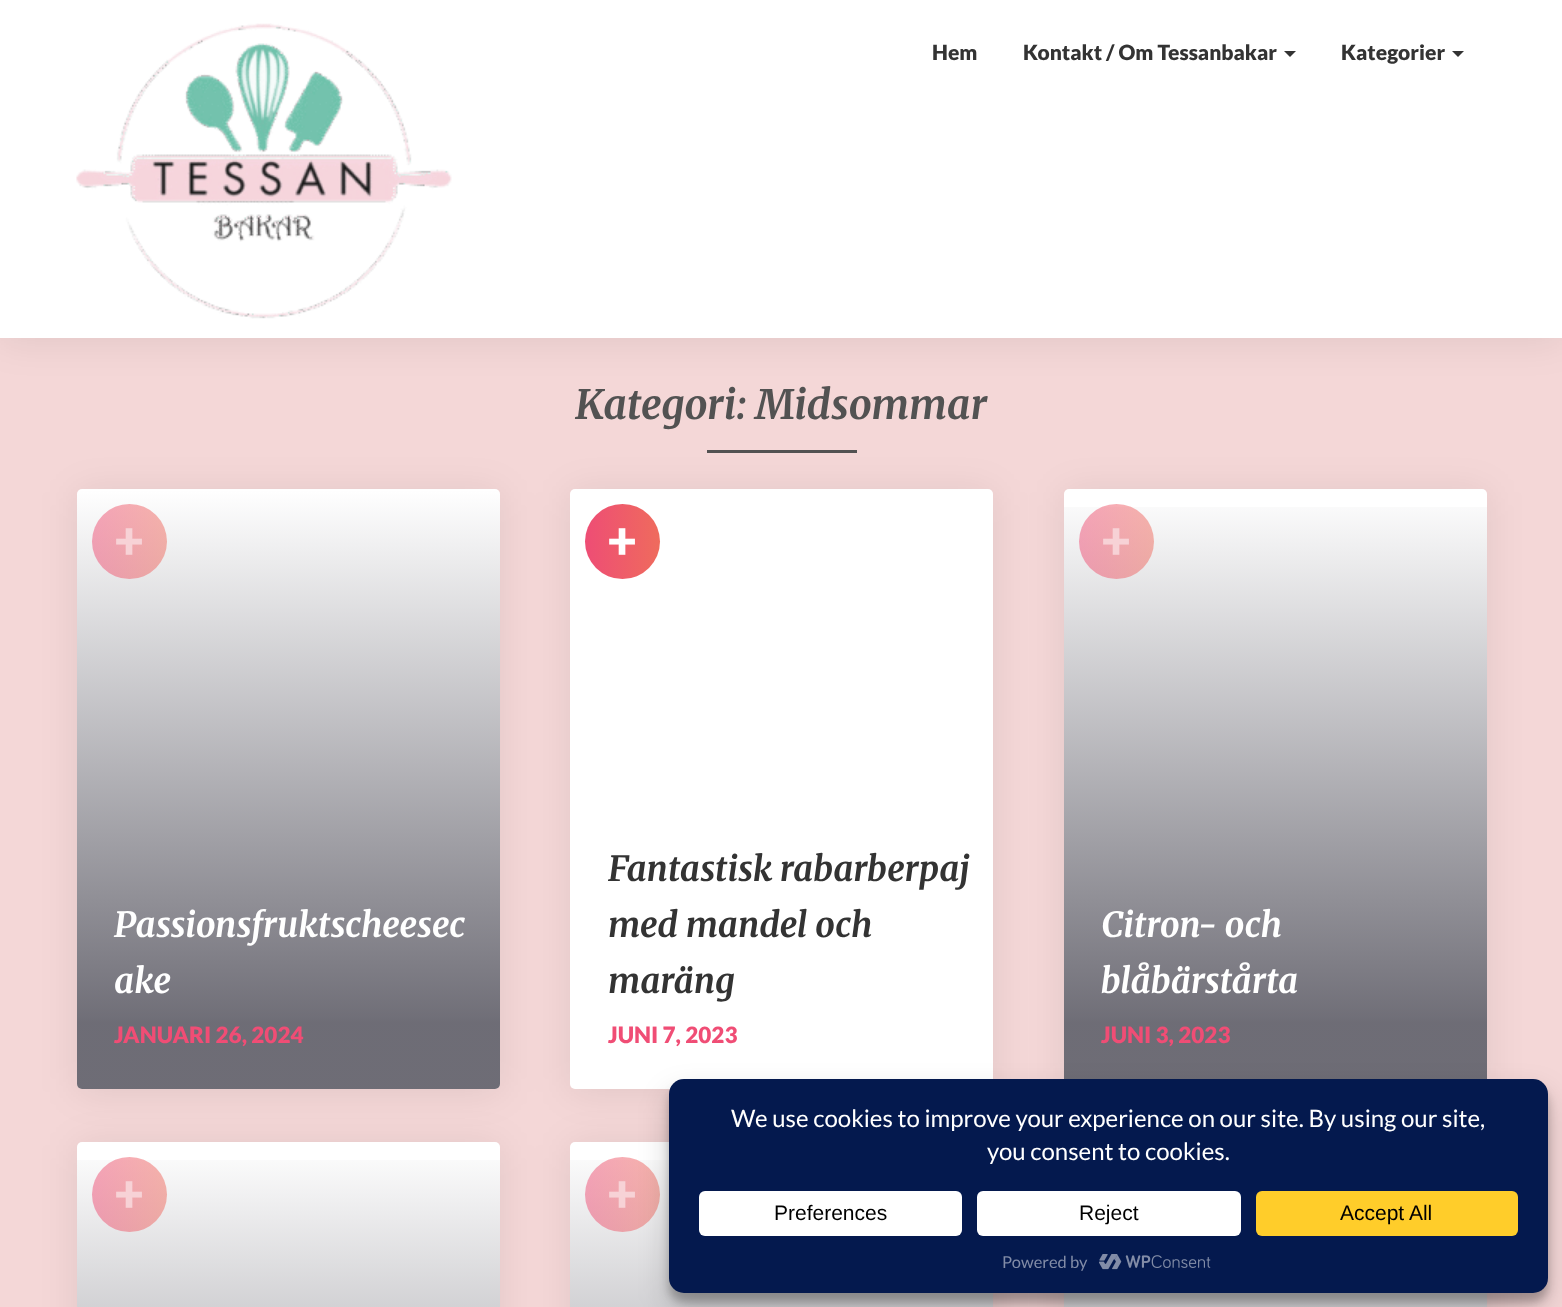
<!DOCTYPE html>
<meta charset="utf-8">
<style>body { margin: 0 } canvas { display: block }</style>
<canvas id="canvas" width="1562" height="1307"></canvas>
<script type="module">
  const canvas = document.getElementById("canvas");
  const ctx = canvas.getContext("2d");
  ctx.miterLimit = 4;
  ctx.fontKerning = "normal";
  async function loadImage(src) {
    const img = new Image();
    img.src = src;
    await img.decode();
    return img;
  }
  let gradient;

  ctx.fillStyle = "#f4d7d7";
  ctx.fillRect(0, 0, 1562, 1307);
  ctx.fillStyle = "rgba(0, 0, 0, 0.08)";
  ctx.filter = "blur(19px)";
  ctx.beginPath();
  ctx.rect(0, 3, 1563, 338);
  ctx.fill();
  ctx.filter = "none";
  ctx.fillStyle = "#ffffff";
  ctx.fillRect(0, 0, 1562, 338);
  ctx.drawImage(await loadImage("img1.png"), 76, 23, 376, 296);
  ctx.font = "900 21px Lato";
  ctx.fillStyle = "#333333";
  ctx.fillText("Hem", 932, 60);
  ctx.fillText("Kontakt / Om Tessanbakar", 1023, 60);
  ctx.beginPath();
  ctx.moveTo(1284, 51);
  ctx.lineTo(1296, 51);
  ctx.lineTo(1290, 57);
  ctx.closePath();
  ctx.fill();
  ctx.fillText("Kategorier", 1341, 60);
  ctx.beginPath();
  ctx.moveTo(1452, 51);
  ctx.lineTo(1464, 51);
  ctx.lineTo(1458, 57);
  ctx.closePath();
  ctx.fill();
  ctx.font = "italic 300 40.5px Merriweather";
  ctx.fillStyle = "#525252";
  ctx.fillText("Kategori: Midsommar", 575, 419);
  ctx.fillRect(707, 450, 150, 3);
  ctx.fillStyle = "rgba(0, 0, 0, 0.08)";
  ctx.filter = "blur(19px)";
  ctx.beginPath();
  ctx.roundRect(77, 492, 423, 600, 5);
  ctx.fill();
  ctx.filter = "none";
  ctx.fillStyle = "#ffffff";
  ctx.beginPath();
  ctx.roundRect(77, 489, 423, 600, 5);
  ctx.fill();
  ctx.fillStyle = "rgba(0, 0, 0, 0.08)";
  ctx.filter = "blur(19px)";
  ctx.beginPath();
  ctx.roundRect(77, 1145, 423, 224, 5);
  ctx.fill();
  ctx.filter = "none";
  gradient = ctx.createLinearGradient(288, 489, 288, 1089);
  gradient.addColorStop(0, "rgba(32, 30, 44, 0)");
  gradient.addColorStop(0.88, "rgba(32, 30, 44, 0.64)");
  gradient.addColorStop(0.89, "rgba(32, 30, 44, 0.65)");
  ctx.fillStyle = gradient;
  ctx.beginPath();
  ctx.roundRect(77, 489, 423, 600, 5);
  ctx.fill();
  gradient = ctx.createLinearGradient(92, 542, 167, 542);
  gradient.addColorStop(0, "rgba(238, 77, 117, 0.5)");
  gradient.addColorStop(1, "rgba(239, 107, 93, 0.5)");
  ctx.fillStyle = gradient;
  ctx.beginPath();
  ctx.arc(129.5, 541.5, 37.5, 0, Math.PI * 2);
  ctx.fill();
  ctx.font = "900 52px Lato";
  ctx.fillStyle = "#f7d2d6";
  ctx.fillText("+", 114, 559);
  ctx.font = "italic 300 34.5px Merriweather";
  ctx.fillStyle = "#ffffff";
  ctx.fillText("Passionsfruktscheesec", 114, 937);
  ctx.fillText("ake", 114, 993);
  ctx.font = "900 22.5px Lato";
  ctx.fillStyle = "#f04d75";
  ctx.fillText("JANUARI 26, 2024", 114, 1043);
  ctx.fillStyle = "rgba(0, 0, 0, 0.08)";
  ctx.filter = "blur(19px)";
  ctx.beginPath();
  ctx.roundRect(570, 492, 423, 600, 5);
  ctx.fill();
  ctx.filter = "none";
  ctx.fillStyle = "#ffffff";
  ctx.beginPath();
  ctx.roundRect(570, 489, 423, 600, 5);
  ctx.fill();
  gradient = ctx.createLinearGradient(585, 542, 660, 542);
  gradient.addColorStop(0, "#ee4d75");
  gradient.addColorStop(1, "#ef6b5d");
  ctx.fillStyle = gradient;
  ctx.beginPath();
  ctx.arc(622.5, 541.5, 37.5, 0, Math.PI * 2);
  ctx.fill();
  ctx.font = "900 52px Lato";
  ctx.fillStyle = "#ffffff";
  ctx.fillText("+", 607, 559);
  ctx.font = "italic 300 34.5px Merriweather";
  ctx.fillStyle = "#333333";
  ctx.fillText("Fantastisk rabarberpaj", 608, 881);
  ctx.fillText("med mandel och", 608, 937);
  ctx.fillText("maräng", 608, 993);
  ctx.font = "900 22.5px Lato";
  ctx.fillStyle = "#f04d75";
  ctx.fillText("JUNI 7, 2023", 608, 1043);
  ctx.fillStyle = "rgba(0, 0, 0, 0.08)";
  ctx.filter = "blur(19px)";
  ctx.beginPath();
  ctx.roundRect(1064, 492, 423, 600, 5);
  ctx.fill();
  ctx.filter = "none";
  ctx.fillStyle = "#ffffff";
  ctx.beginPath();
  ctx.roundRect(1064, 489, 423, 600, 5);
  ctx.fill();
  gradient = ctx.createLinearGradient(1275, 489, 1275, 1089);
  gradient.addColorStop(0, "rgba(32, 30, 44, 0)");
  gradient.addColorStop(0.88, "rgba(32, 30, 44, 0.64)");
  gradient.addColorStop(0.89, "rgba(32, 30, 44, 0.65)");
  ctx.fillStyle = gradient;
  ctx.fillRect(1064, 507, 423, 572);
  gradient = ctx.createLinearGradient(1079, 542, 1154, 542);
  gradient.addColorStop(0, "rgba(238, 77, 117, 0.5)");
  gradient.addColorStop(1, "rgba(239, 107, 93, 0.5)");
  ctx.fillStyle = gradient;
  ctx.beginPath();
  ctx.arc(1116.5, 541.5, 37.5, 0, Math.PI * 2);
  ctx.fill();
  ctx.font = "900 52px Lato";
  ctx.fillStyle = "#f7d2d6";
  ctx.fillText("+", 1101, 559);
  ctx.font = "italic 300 34.5px Merriweather";
  ctx.fillStyle = "#ffffff";
  ctx.fillText("Citron- och", 1101, 937);
  ctx.fillText("blåbärstårta", 1101, 993);
  ctx.font = "900 22.5px Lato";
  ctx.fillStyle = "#f04d75";
  ctx.fillText("JUNI 3, 2023", 1101, 1043);
  ctx.fillStyle = "#ffffff";
  ctx.beginPath();
  ctx.roundRect(77, 1142, 423, 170, 5);
  ctx.fill();
  gradient = ctx.createLinearGradient(288, 1142, 288, 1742);
  gradient.addColorStop(0, "rgba(32, 30, 44, 0)");
  gradient.addColorStop(0.88, "rgba(32, 30, 44, 0.64)");
  gradient.addColorStop(0.89, "rgba(32, 30, 44, 0.65)");
  ctx.fillStyle = gradient;
  ctx.fillRect(77, 1160, 423, 147);
  gradient = ctx.createLinearGradient(92, 1194, 167, 1194);
  gradient.addColorStop(0, "rgba(238, 77, 117, 0.5)");
  gradient.addColorStop(1, "rgba(239, 107, 93, 0.5)");
  ctx.fillStyle = gradient;
  ctx.beginPath();
  ctx.arc(129.5, 1194.5, 37.5, 0, Math.PI * 2);
  ctx.fill();
  ctx.font = "900 52px Lato";
  ctx.fillStyle = "#f7d2d6";
  ctx.fillText("+", 114, 1212);
  ctx.fillStyle = "rgba(0, 0, 0, 0.08)";
  ctx.filter = "blur(19px)";
  ctx.beginPath();
  ctx.roundRect(570, 1145, 423, 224, 5);
  ctx.fill();
  ctx.filter = "none";
  ctx.fillStyle = "#ffffff";
  ctx.beginPath();
  ctx.roundRect(570, 1142, 423, 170, 5);
  ctx.fill();
  gradient = ctx.createLinearGradient(782, 1142, 782, 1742);
  gradient.addColorStop(0, "rgba(32, 30, 44, 0)");
  gradient.addColorStop(0.88, "rgba(32, 30, 44, 0.64)");
  gradient.addColorStop(0.89, "rgba(32, 30, 44, 0.65)");
  ctx.fillStyle = gradient;
  ctx.fillRect(570, 1160, 423, 147);
  gradient = ctx.createLinearGradient(585, 1194, 660, 1194);
  gradient.addColorStop(0, "rgba(238, 77, 117, 0.5)");
  gradient.addColorStop(1, "rgba(239, 107, 93, 0.5)");
  ctx.fillStyle = gradient;
  ctx.beginPath();
  ctx.arc(622.5, 1194.5, 37.5, 0, Math.PI * 2);
  ctx.fill();
  ctx.fillStyle = "#f7d2d6";
  ctx.fillText("+", 607, 1212);
  ctx.fillStyle = "rgba(0, 0, 0, 0.08)";
  ctx.filter = "blur(19px)";
  ctx.beginPath();
  ctx.roundRect(1064, 1145, 423, 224, 5);
  ctx.fill();
  ctx.filter = "none";
  ctx.fillStyle = "#ffffff";
  ctx.fillRect(1064, 1293, 423, 14);
  gradient = ctx.createLinearGradient(1275, 1142, 1275, 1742);
  gradient.addColorStop(0, "rgba(32, 30, 44, 0)");
  gradient.addColorStop(0.88, "rgba(32, 30, 44, 0.64)");
  gradient.addColorStop(0.89, "rgba(32, 30, 44, 0.65)");
  ctx.fillStyle = gradient;
  ctx.fillRect(1064, 1293, 423, 14);
  ctx.fillStyle = "rgba(0, 0, 0, 0.23)";
  ctx.filter = "blur(4.5px)";
  ctx.beginPath();
  ctx.roundRect(669, 1088, 879, 214, 15);
  ctx.fill();
  ctx.filter = "none";
  ctx.fillStyle = "rgba(0, 0, 0, 0.19)";
  ctx.filter = "blur(15px)";
  ctx.beginPath();
  ctx.roundRect(669, 1094, 879, 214, 15);
  ctx.fill();
  ctx.filter = "none";
  ctx.fillStyle = "#04194e";
  ctx.beginPath();
  ctx.roundRect(669, 1079, 879, 214, 15);
  ctx.fill();
  ctx.font = "24px Lato";
  ctx.fillStyle = "#ffffff";
  ctx.fillText("We use cookies to improve your experience on our site. By using our site,", 731, 1127);
  ctx.fillText("you consent to cookies.", 987, 1160);
  ctx.beginPath();
  ctx.roundRect(699, 1191, 263, 45, 6);
  ctx.fill();
  ctx.font = "21px Liberation Sans";
  ctx.fillStyle = "#000000";
  ctx.fillText("Preferences", 774, 1220);
  ctx.fillStyle = "#ffffff";
  ctx.beginPath();
  ctx.roundRect(977, 1191, 264, 45, 6);
  ctx.fill();
  ctx.fillStyle = "#000000";
  ctx.fillText("Reject", 1079, 1220);
  ctx.fillStyle = "#ffcd2a";
  ctx.beginPath();
  ctx.roundRect(1256, 1191, 262, 45, 6);
  ctx.fill();
  ctx.fillStyle = "#000000";
  ctx.fillText("Accept All", 1340, 1220);
  ctx.font = "16.5px Lato";
  ctx.fillStyle = "#828ca7";
  ctx.fillText("Powered by", 1002, 1268);
  ctx.drawImage(await loadImage("img2.png"), 1099, 1254, 112, 16);
</script>
